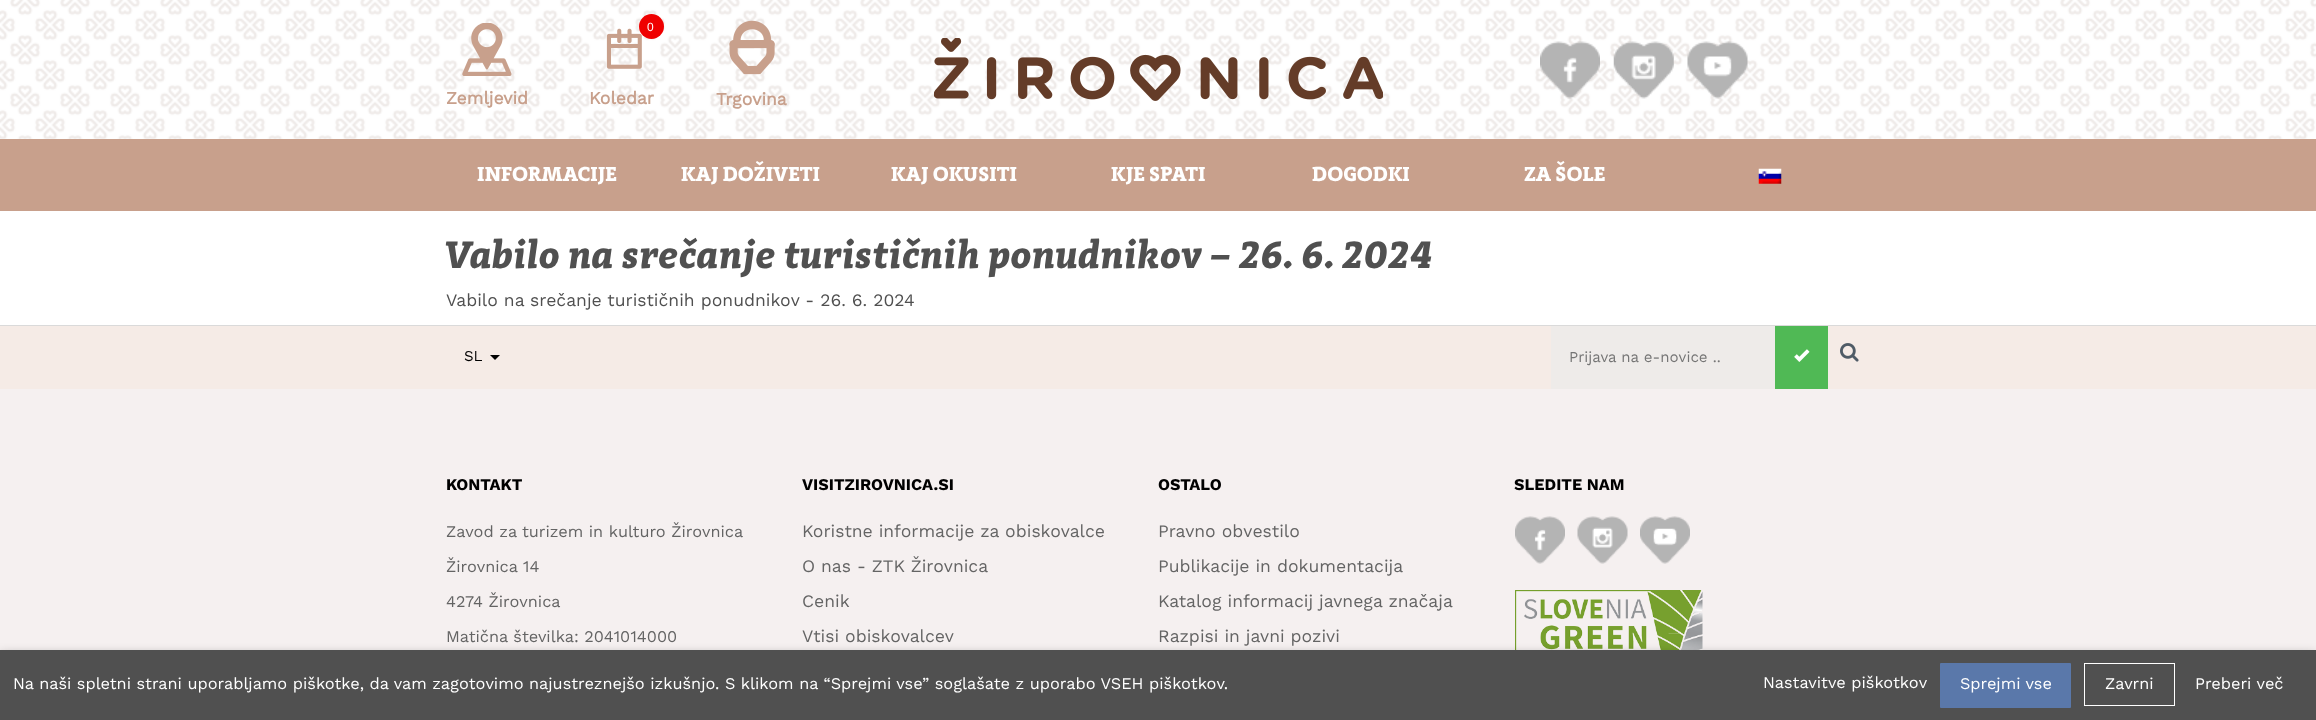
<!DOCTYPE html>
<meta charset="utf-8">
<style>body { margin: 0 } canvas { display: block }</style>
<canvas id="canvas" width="2316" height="720"></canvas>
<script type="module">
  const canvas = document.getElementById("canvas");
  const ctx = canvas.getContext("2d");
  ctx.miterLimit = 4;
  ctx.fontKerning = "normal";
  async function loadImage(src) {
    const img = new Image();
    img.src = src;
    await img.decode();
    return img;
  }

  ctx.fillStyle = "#ffffff";
  ctx.fillRect(0, 0, 2316, 720);
  ctx.drawImage(await loadImage("img1.png"), 0, 0, 2316, 139);
  ctx.drawImage(await loadImage("img2.png"), 462, 23, 50, 53);
  ctx.font = "bold 17.5px 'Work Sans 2'";
  ctx.fillStyle = "#c8a08c";
  ctx.fillText("Zemljevid", 446, 104);
  ctx.drawImage(await loadImage("img3.png"), 606, 28, 36, 41);
  ctx.fillStyle = "#ef0000";
  ctx.beginPath();
  ctx.arc(651.5, 26.5, 12.5, 0, Math.PI * 2);
  ctx.fill();
  ctx.font = "12px Liberation Sans";
  ctx.fillStyle = "#ffffff";
  ctx.fillText("0", 647, 31);
  ctx.font = "bold 17.5px 'Work Sans 2'";
  ctx.fillStyle = "#c8a08c";
  ctx.fillText("Koledar", 589, 104);
  ctx.drawImage(await loadImage("img4.png"), 729, 20, 46, 55);
  ctx.fillText("Trgovina", 716, 105);
  ctx.drawImage(await loadImage("img5.png"), 934, 38, 449, 63);
  ctx.drawImage(await loadImage("img6.png"), 1540, 41, 60, 58);
  ctx.drawImage(await loadImage("img7.png"), 1613, 41, 61, 58);
  ctx.drawImage(await loadImage("img8.png"), 1687, 41, 61, 58);
  ctx.fillRect(0, 139, 2316, 72);
  ctx.font = "bold 20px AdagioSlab";
  ctx.fillStyle = "#ffffff";
  ctx.fillText("INFORMACIJE", 477, 181);
  ctx.fillText("KAJ DOŽIVETI", 681, 181);
  ctx.fillText("KAJ OKUSITI", 891, 181);
  ctx.fillText("KJE SPATI", 1111, 181);
  ctx.fillText("DOGODKI", 1312, 181);
  ctx.fillText("ZA ŠOLE", 1524, 181);
  ctx.drawImage(await loadImage("img9.png"), 1758, 168, 24, 16);
  ctx.font = "italic bold 37.5px AdagioSlab";
  ctx.fillStyle = "#505050";
  ctx.fillText("Vabilo na srečanje turističnih ponudnikov – 26. 6. 2024", 446, 268);
  ctx.font = "17.5px Work Sans";
  ctx.fillText("Vabilo na srečanje turističnih ponudnikov - 26. 6. 2024", 446, 306);
  ctx.fillStyle = "#f5ebe6";
  ctx.fillRect(0, 326, 2316, 63);
  ctx.fillStyle = "#dadada";
  ctx.fillRect(0, 325, 2316, 1);
  ctx.font = "15px Work Sans";
  ctx.fillStyle = "#000000";
  ctx.fillText("SL", 464, 361);
  ctx.beginPath();
  ctx.moveTo(490, 355);
  ctx.lineTo(500, 355);
  ctx.lineTo(495, 360);
  ctx.closePath();
  ctx.fill();
  ctx.fillStyle = "#eeebe9";
  ctx.fillRect(1551, 326, 224, 63);
  ctx.fillStyle = "#757575";
  ctx.fillText("Prijava na e-novice ..", 1569, 362);
  ctx.fillStyle = "#50b955";
  ctx.fillRect(1775, 326, 53, 63);
  ctx.drawImage(await loadImage("img10.png"), 1794, 349, 16, 13);
  ctx.drawImage(await loadImage("img11.png"), 1840, 343, 19, 19);
  ctx.fillStyle = "#f5f0f0";
  ctx.fillRect(0, 389, 2316, 261);
  ctx.font = "bold 16.25px Work Sans";
  ctx.fillStyle = "#000000";
  ctx.fillText("KONTAKT", 446, 490);
  ctx.font = "16.25px Work Sans";
  ctx.fillStyle = "#646464";
  ctx.fillText("Zavod za turizem in kulturo Žirovnica", 446, 537);
  ctx.fillText("Žirovnica 14", 446, 572);
  ctx.fillText("4274 Žirovnica", 446, 607);
  ctx.fillText("Matična številka: 2041014000", 446, 642);
  ctx.font = "bold 16.25px Work Sans";
  ctx.fillStyle = "#000000";
  ctx.fillText("VISITZIROVNICA.SI", 802, 490);
  ctx.font = "17.5px Work Sans";
  ctx.fillStyle = "#646464";
  ctx.fillText("Koristne informacije za obiskovalce", 802, 537);
  ctx.fillText("O nas - ZTK Žirovnica", 802, 572);
  ctx.fillText("Cenik", 802, 607);
  ctx.fillText("Vtisi obiskovalcev", 802, 642);
  ctx.font = "bold 16.25px Work Sans";
  ctx.fillStyle = "#000000";
  ctx.fillText("OSTALO", 1158, 490);
  ctx.font = "17.5px Work Sans";
  ctx.fillStyle = "#646464";
  ctx.fillText("Pravno obvestilo", 1158, 537);
  ctx.fillText("Publikacije in dokumentacija", 1158, 572);
  ctx.fillText("Katalog informacij javnega značaja", 1158, 607);
  ctx.fillText("Razpisi in javni pozivi", 1158, 642);
  ctx.font = "bold 16.25px Work Sans";
  ctx.fillStyle = "#000000";
  ctx.fillText("SLEDITE NAM", 1514, 490);
  ctx.drawImage(await loadImage("img12.png"), 1515, 516, 50, 48);
  ctx.drawImage(await loadImage("img13.png"), 1577, 516, 51, 48);
  ctx.drawImage(await loadImage("img14.png"), 1640, 516, 50, 48);
  ctx.drawImage(await loadImage("img15.png"), 1515, 590, 188, 60);
  ctx.fillStyle = "rgba(0, 0, 0, 0.5)";
  ctx.filter = "blur(6px)";
  ctx.beginPath();
  ctx.rect(0, 656, 2316, 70);
  ctx.fill();
  ctx.filter = "none";
  ctx.fillStyle = "#505050";
  ctx.fillRect(0, 650, 2316, 70);
  ctx.font = "16.25px Work Sans";
  ctx.fillStyle = "#ffffff";
  ctx.fillText("Na naši spletni strani uporabljamo piškotke, da vam zagotovimo najustreznejšo izkušnjo. S klikom na “Sprejmi vse” soglašate z uporabo VSEH piškotkov.", 13, 689);
  ctx.fillText("Nastavitve piškotkov", 1763, 688);
  ctx.fillStyle = "#5a78aa";
  ctx.beginPath();
  ctx.roundRect(1940, 663, 131, 45, 1);
  ctx.fill();
  ctx.fillStyle = "#ffffff";
  ctx.fillText("Sprejmi vse", 1960, 689);
  ctx.strokeStyle = "#ffffff";
  ctx.strokeRect(2084.5, 663.5, 90, 42);
  ctx.fillText("Zavrni", 2105, 689);
  ctx.fillText("Preberi več", 2195, 689);
</script>
